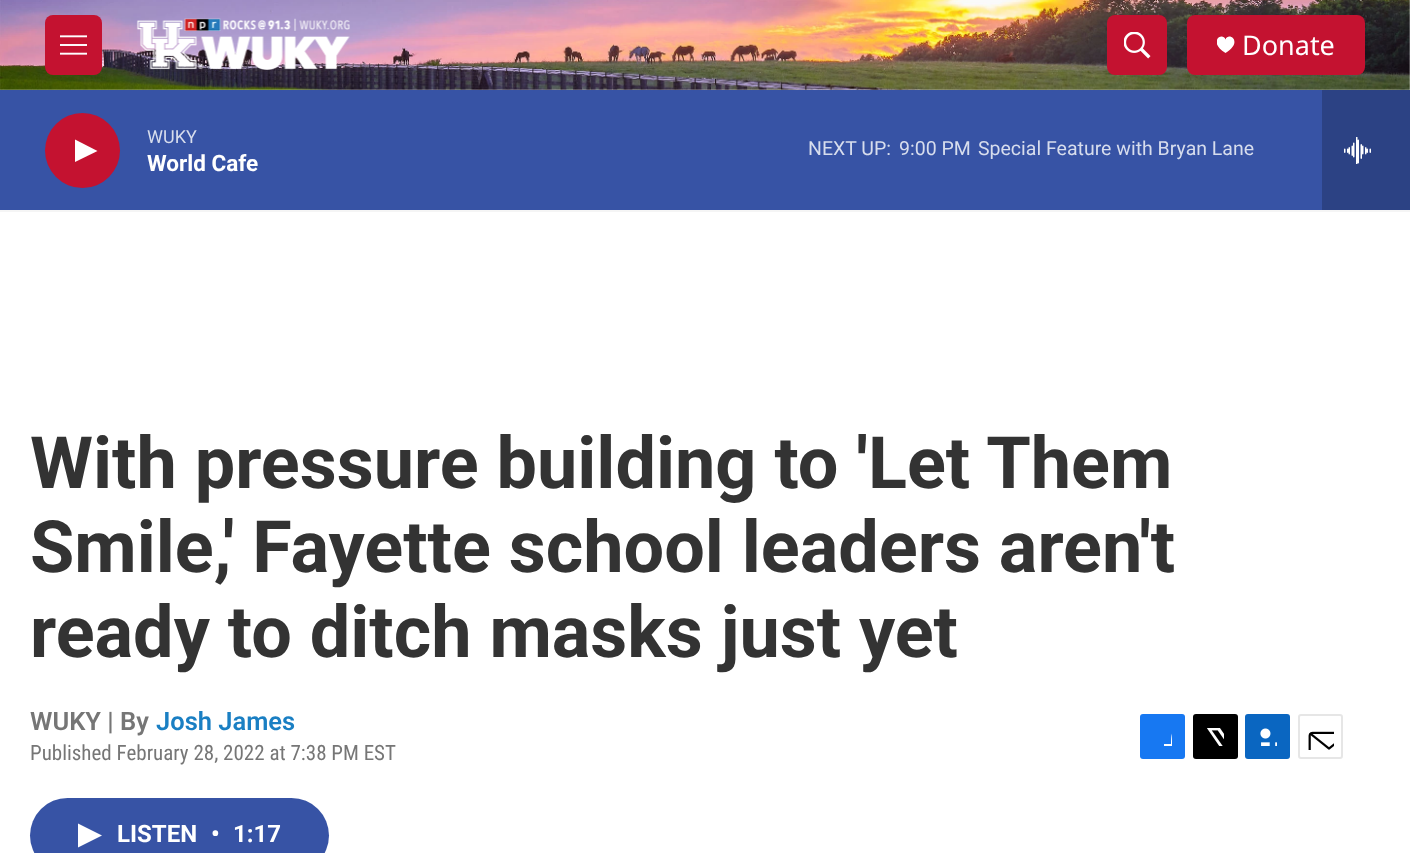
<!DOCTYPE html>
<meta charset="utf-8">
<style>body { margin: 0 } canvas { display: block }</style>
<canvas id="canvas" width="1410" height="853"></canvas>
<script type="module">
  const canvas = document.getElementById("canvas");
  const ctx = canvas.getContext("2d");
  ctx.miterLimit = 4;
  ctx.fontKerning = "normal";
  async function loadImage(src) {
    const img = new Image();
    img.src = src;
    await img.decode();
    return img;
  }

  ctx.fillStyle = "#ffffff";
  ctx.fillRect(0, 0, 1410, 853);
  ctx.fillStyle = "#f5f5f5";
  ctx.fillRect(0, 210, 1410, 2);
  ctx.drawImage(await loadImage("img1.png"), 0, 0, 1410, 90);
  ctx.fillStyle = "#c41230";
  ctx.beginPath();
  ctx.roundRect(45, 15, 57, 60, 8);
  ctx.fill();
  ctx.drawImage(await loadImage("img2.png"), 60, 35, 27, 20);
  ctx.drawImage(await loadImage("img3.png"), 136, 18, 214, 52);
  ctx.beginPath();
  ctx.roundRect(1107, 15, 60, 60, 8);
  ctx.fill();
  ctx.drawImage(await loadImage("img4.png"), 1124, 32, 27, 27);
  ctx.beginPath();
  ctx.roundRect(1187, 15, 178, 60, 8);
  ctx.fill();
  ctx.save();
  ctx.beginPath();
  ctx.rect(1217, 36, 18, 18);
  ctx.clip();
  ctx.fillStyle = "#ffffff";
  ctx.beginPath();
  ctx.moveTo(1225.5, 39.5);
  ctx.bezierCurveTo(1222.5, 31.5, 1207, 41.5, 1225.5, 53);
  ctx.bezierCurveTo(1244, 41.5, 1228.5, 31.5, 1225.5, 39.5);
  ctx.closePath();
  ctx.fill();
  ctx.restore();
  ctx.font = "27px Noto Sans";
  ctx.fillStyle = "#ffffff";
  ctx.fillText("Donate", 1242, 55);
  ctx.fillStyle = "#3753a5";
  ctx.fillRect(0, 90, 1322, 120);
  ctx.fillStyle = "#c41230";
  ctx.beginPath();
  ctx.arc(82.5, 150.5, 37.5, 0, Math.PI * 2);
  ctx.fill();
  ctx.fillStyle = "#ffffff";
  ctx.beginPath();
  ctx.moveTo(75, 139.5);
  ctx.lineTo(97.5, 151);
  ctx.lineTo(75, 162);
  ctx.closePath();
  ctx.fill();
  ctx.font = "18px Roboto";
  ctx.fillStyle = "#d7dded";
  ctx.fillText("WUKY", 147, 143);
  ctx.font = "bold 22.5px 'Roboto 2'";
  ctx.fillStyle = "#ffffff";
  ctx.fillText("World Cafe", 147, 171);
  ctx.font = "19.5px Roboto";
  ctx.fillStyle = "#d7dded";
  ctx.fillText("NEXT UP:", 808, 155);
  ctx.fillText("9:00 PM", 899, 155);
  ctx.fillText("Special Feature with Bryan Lane", 978, 155);
  ctx.fillStyle = "#2c4284";
  ctx.fillRect(1322, 90, 88, 120);
  ctx.drawImage(await loadImage("img5.png"), 1344, 137, 27, 27);
  ctx.font = "bold 72px Roboto";
  ctx.fillStyle = "#333333";
  ctx.fillText("With pressure building to 'Let Them", 30, 488);
  ctx.fillText("Smile,' Fayette school leaders aren't", 30, 572);
  ctx.fillText("ready to ditch masks just yet", 30, 657);
  ctx.font = "600 25.5px Roboto";
  ctx.fillStyle = "#767676";
  ctx.fillText("WUKY | By", 30, 730);
  ctx.fillStyle = "#1a7fc3";
  ctx.fillText("Josh James", 156, 730);
  ctx.font = "21px Roboto Condensed";
  ctx.fillStyle = "#767676";
  ctx.fillText("Published February 28, 2022 at 7:38 PM EST", 30, 760);
  ctx.fillStyle = "#1778f2";
  ctx.beginPath();
  ctx.roundRect(1140, 714, 45, 45, 3);
  ctx.fill();
  ctx.save();
  ctx.beginPath();
  ctx.rect(1154, 728, 18, 18);
  ctx.clip();
  ctx.fillStyle = "#ffffff";
  ctx.beginPath();
  ctx.moveTo(1178, 759);
  ctx.lineTo(1171, 759);
  ctx.lineTo(1171, 752);
  ctx.lineTo(1164, 752);
  ctx.lineTo(1164, 744);
  ctx.lineTo(1171, 744);
  ctx.bezierCurveTo(1171, 732.5, 1172, 726.5, 1185, 728);
  ctx.lineTo(1185, 735);
  ctx.bezierCurveTo(1177, 735, 1178, 737.5, 1178, 744);
  ctx.lineTo(1185, 744);
  ctx.lineTo(1184, 752);
  ctx.lineTo(1178, 752);
  ctx.closePath();
  ctx.fill();
  ctx.restore();
  ctx.fillStyle = "#000000";
  ctx.beginPath();
  ctx.roundRect(1193, 714, 45, 45, 3);
  ctx.fill();
  ctx.drawImage(await loadImage("img6.png"), 1207, 728, 17, 18);
  ctx.fillStyle = "#0a66c1";
  ctx.beginPath();
  ctx.roundRect(1245, 714, 45, 45, 3);
  ctx.fill();
  ctx.drawImage(await loadImage("img7.png"), 1260, 728, 17, 18);
  ctx.beginPath();
  ctx.roundRect(1299, 715, 43, 43, 2);
  ctx.strokeStyle = "#e6e6e6";
  ctx.lineWidth = 2;
  ctx.stroke();
  ctx.drawImage(await loadImage("img8.png"), 1308, 731, 26, 19);
  ctx.fillStyle = "#3753a5";
  ctx.beginPath();
  ctx.roundRect(30, 798, 299, 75, 37.5);
  ctx.fill();
  ctx.fillStyle = "#ffffff";
  ctx.beginPath();
  ctx.moveTo(78, 823.5);
  ctx.lineTo(102, 835.5);
  ctx.lineTo(78, 847.5);
  ctx.closePath();
  ctx.fill();
  ctx.font = "bold 24px 'Roboto 2'";
  ctx.fillText("LISTEN", 117, 842);
  ctx.fillText("•", 211, 842);
  ctx.fillText("1:17", 233, 842);
</script>
